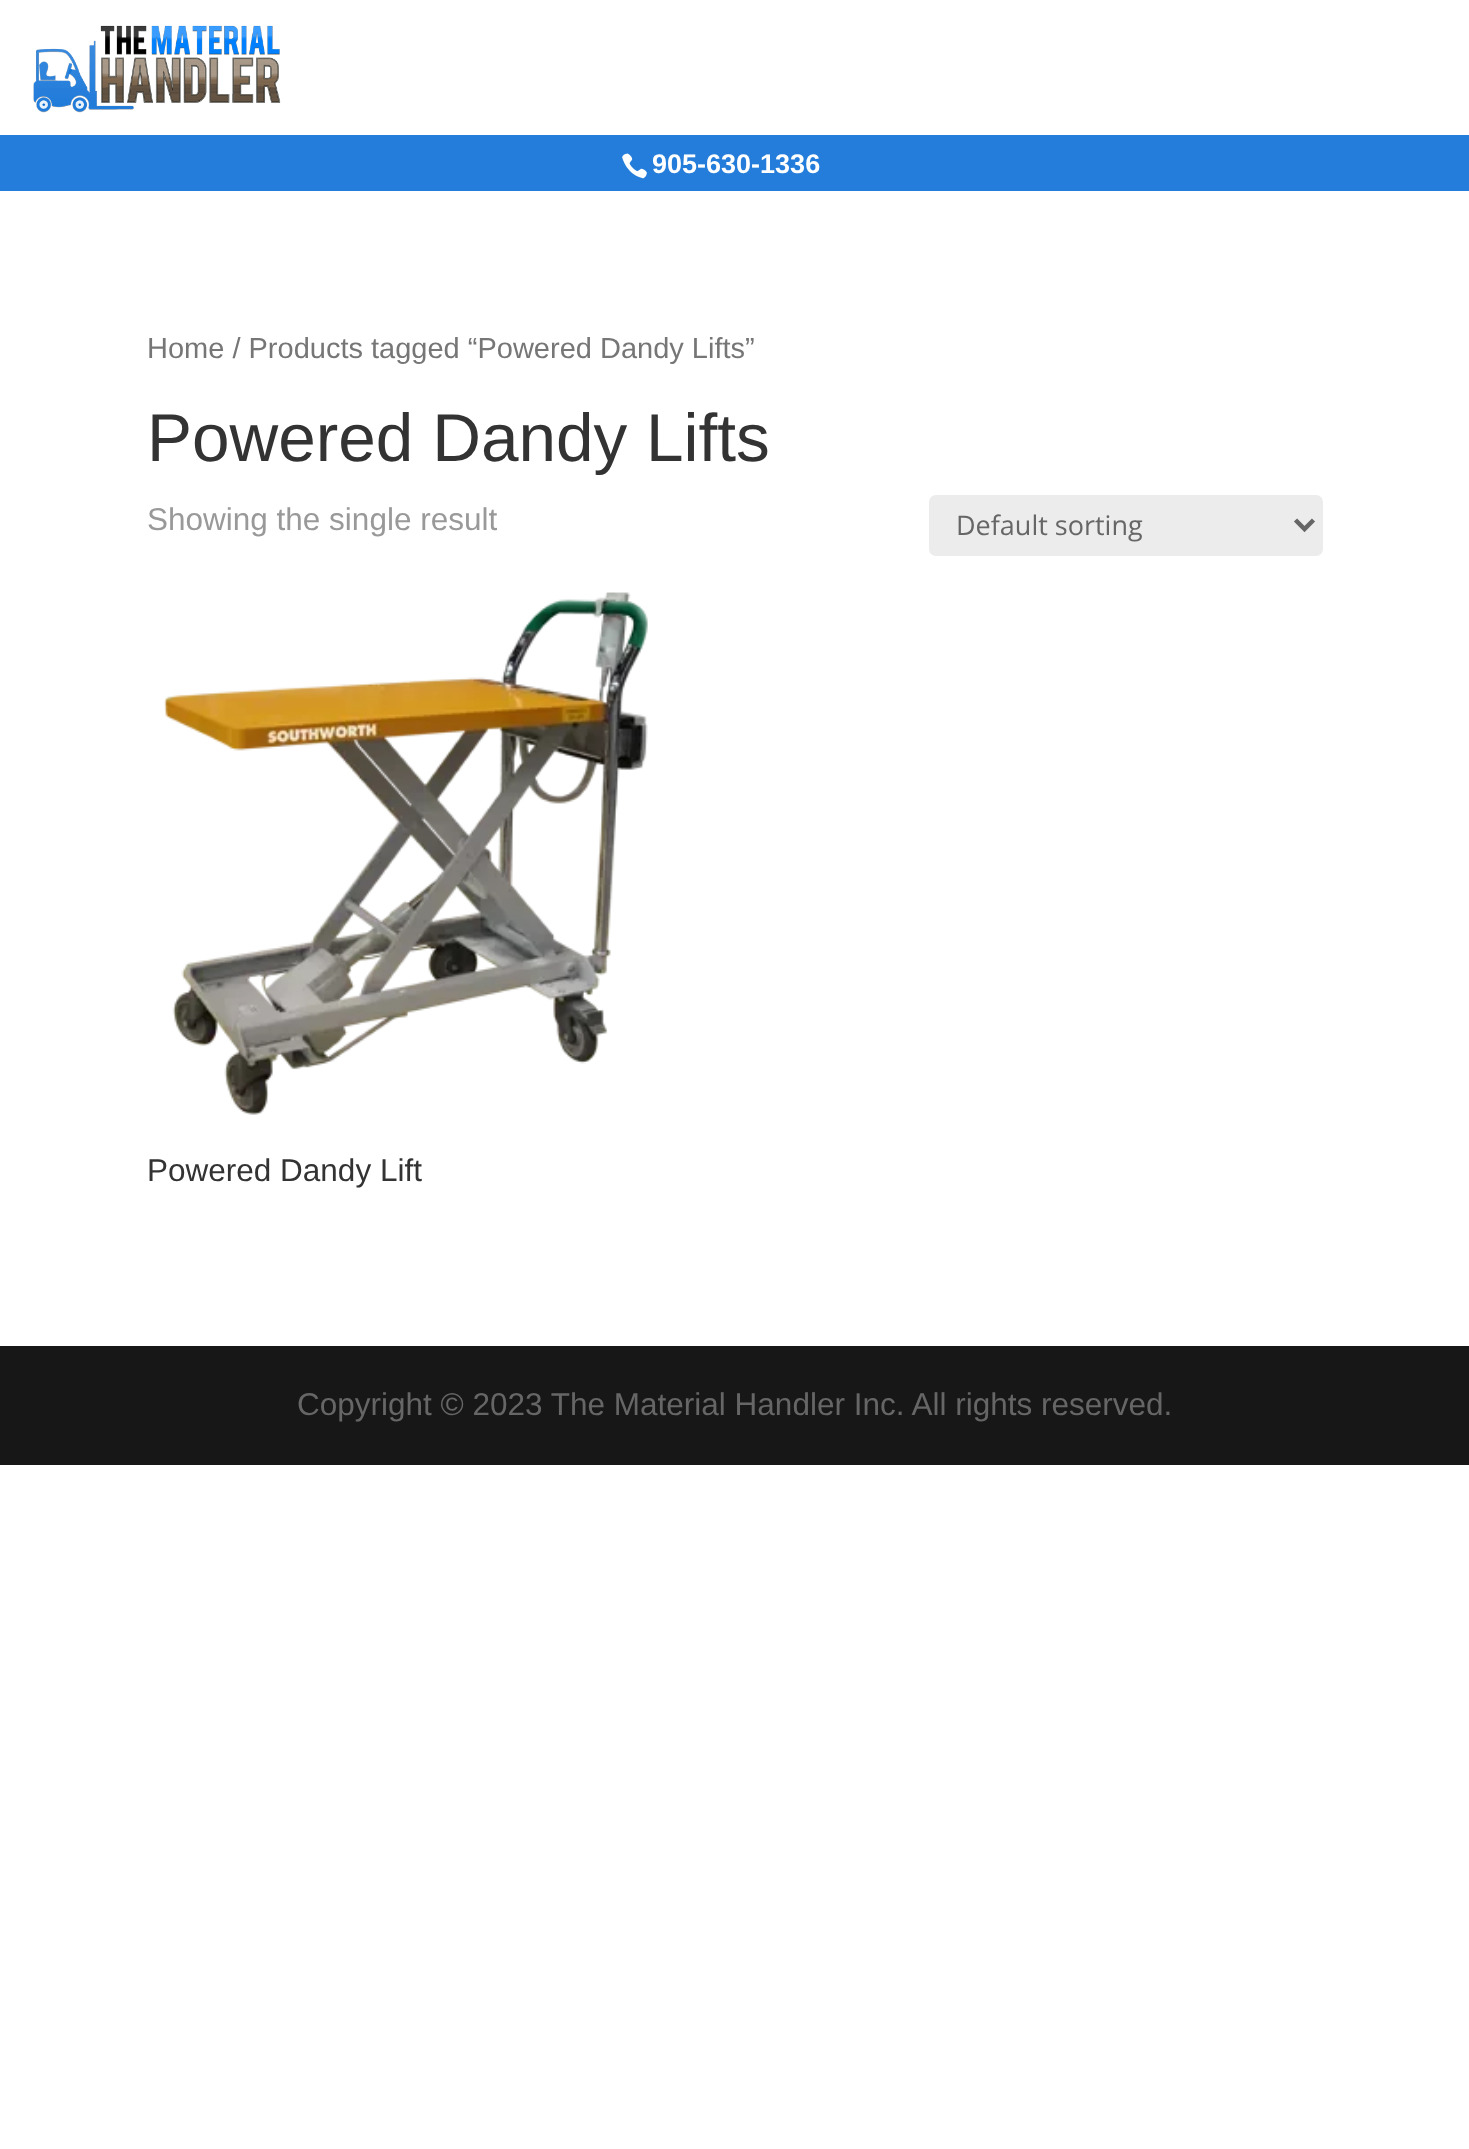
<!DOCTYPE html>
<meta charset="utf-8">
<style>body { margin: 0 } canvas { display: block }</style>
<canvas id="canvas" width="1469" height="2149"></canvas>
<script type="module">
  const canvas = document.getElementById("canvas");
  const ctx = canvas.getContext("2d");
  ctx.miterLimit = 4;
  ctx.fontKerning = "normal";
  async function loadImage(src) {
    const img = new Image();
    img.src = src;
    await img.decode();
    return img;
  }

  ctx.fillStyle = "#ffffff";
  ctx.fillRect(0, 0, 1469, 2149);
  ctx.drawImage(await loadImage("img1.png"), 33, 25, 248, 88);
  ctx.fillStyle = "#247dda";
  ctx.fillRect(0, 135, 1469, 56);
  ctx.drawImage(await loadImage("img2.png"), 622, 153, 25, 26);
  ctx.font = "bold 27px Liberation Sans";
  ctx.fillStyle = "#ffffff";
  ctx.fillText("905-630-1336", 652, 173);
  ctx.font = "29px Liberation Sans";
  ctx.fillStyle = "#767676";
  ctx.fillText("Home / Products tagged “Powered Dandy Lifts”", 147, 358);
  ctx.font = "67.5px Liberation Sans";
  ctx.fillStyle = "#333333";
  ctx.fillText("Powered Dandy Lifts", 147, 461);
  ctx.font = "31.5px Liberation Sans";
  ctx.fillStyle = "#999999";
  ctx.fillText("Showing the single result", 147, 530);
  ctx.fillStyle = "#ececec";
  ctx.beginPath();
  ctx.roundRect(929, 495, 394, 61, 7);
  ctx.fill();
  ctx.beginPath();
  ctx.moveTo(1295.5, 520);
  ctx.lineTo(1304.5, 529);
  ctx.lineTo(1313.5, 520);
  ctx.strokeStyle = "#666666";
  ctx.lineWidth = 4.5;
  ctx.stroke();
  ctx.font = "27px Open Sans";
  ctx.fillStyle = "#666666";
  ctx.fillText("Default sorting", 956, 535);
  ctx.drawImage(await loadImage("img3.png"), 164, 592, 484, 523);
  ctx.font = "31.5px Liberation Sans";
  ctx.fillStyle = "#333333";
  ctx.fillText("Powered Dandy Lift", 147, 1181);
  ctx.fillStyle = "#171717";
  ctx.fillRect(0, 1346, 1469, 119);
  ctx.fillStyle = "#666666";
  ctx.fillText("Copyright © 2023 The Material Handler Inc. All rights reserved.", 297, 1415);
</script>
